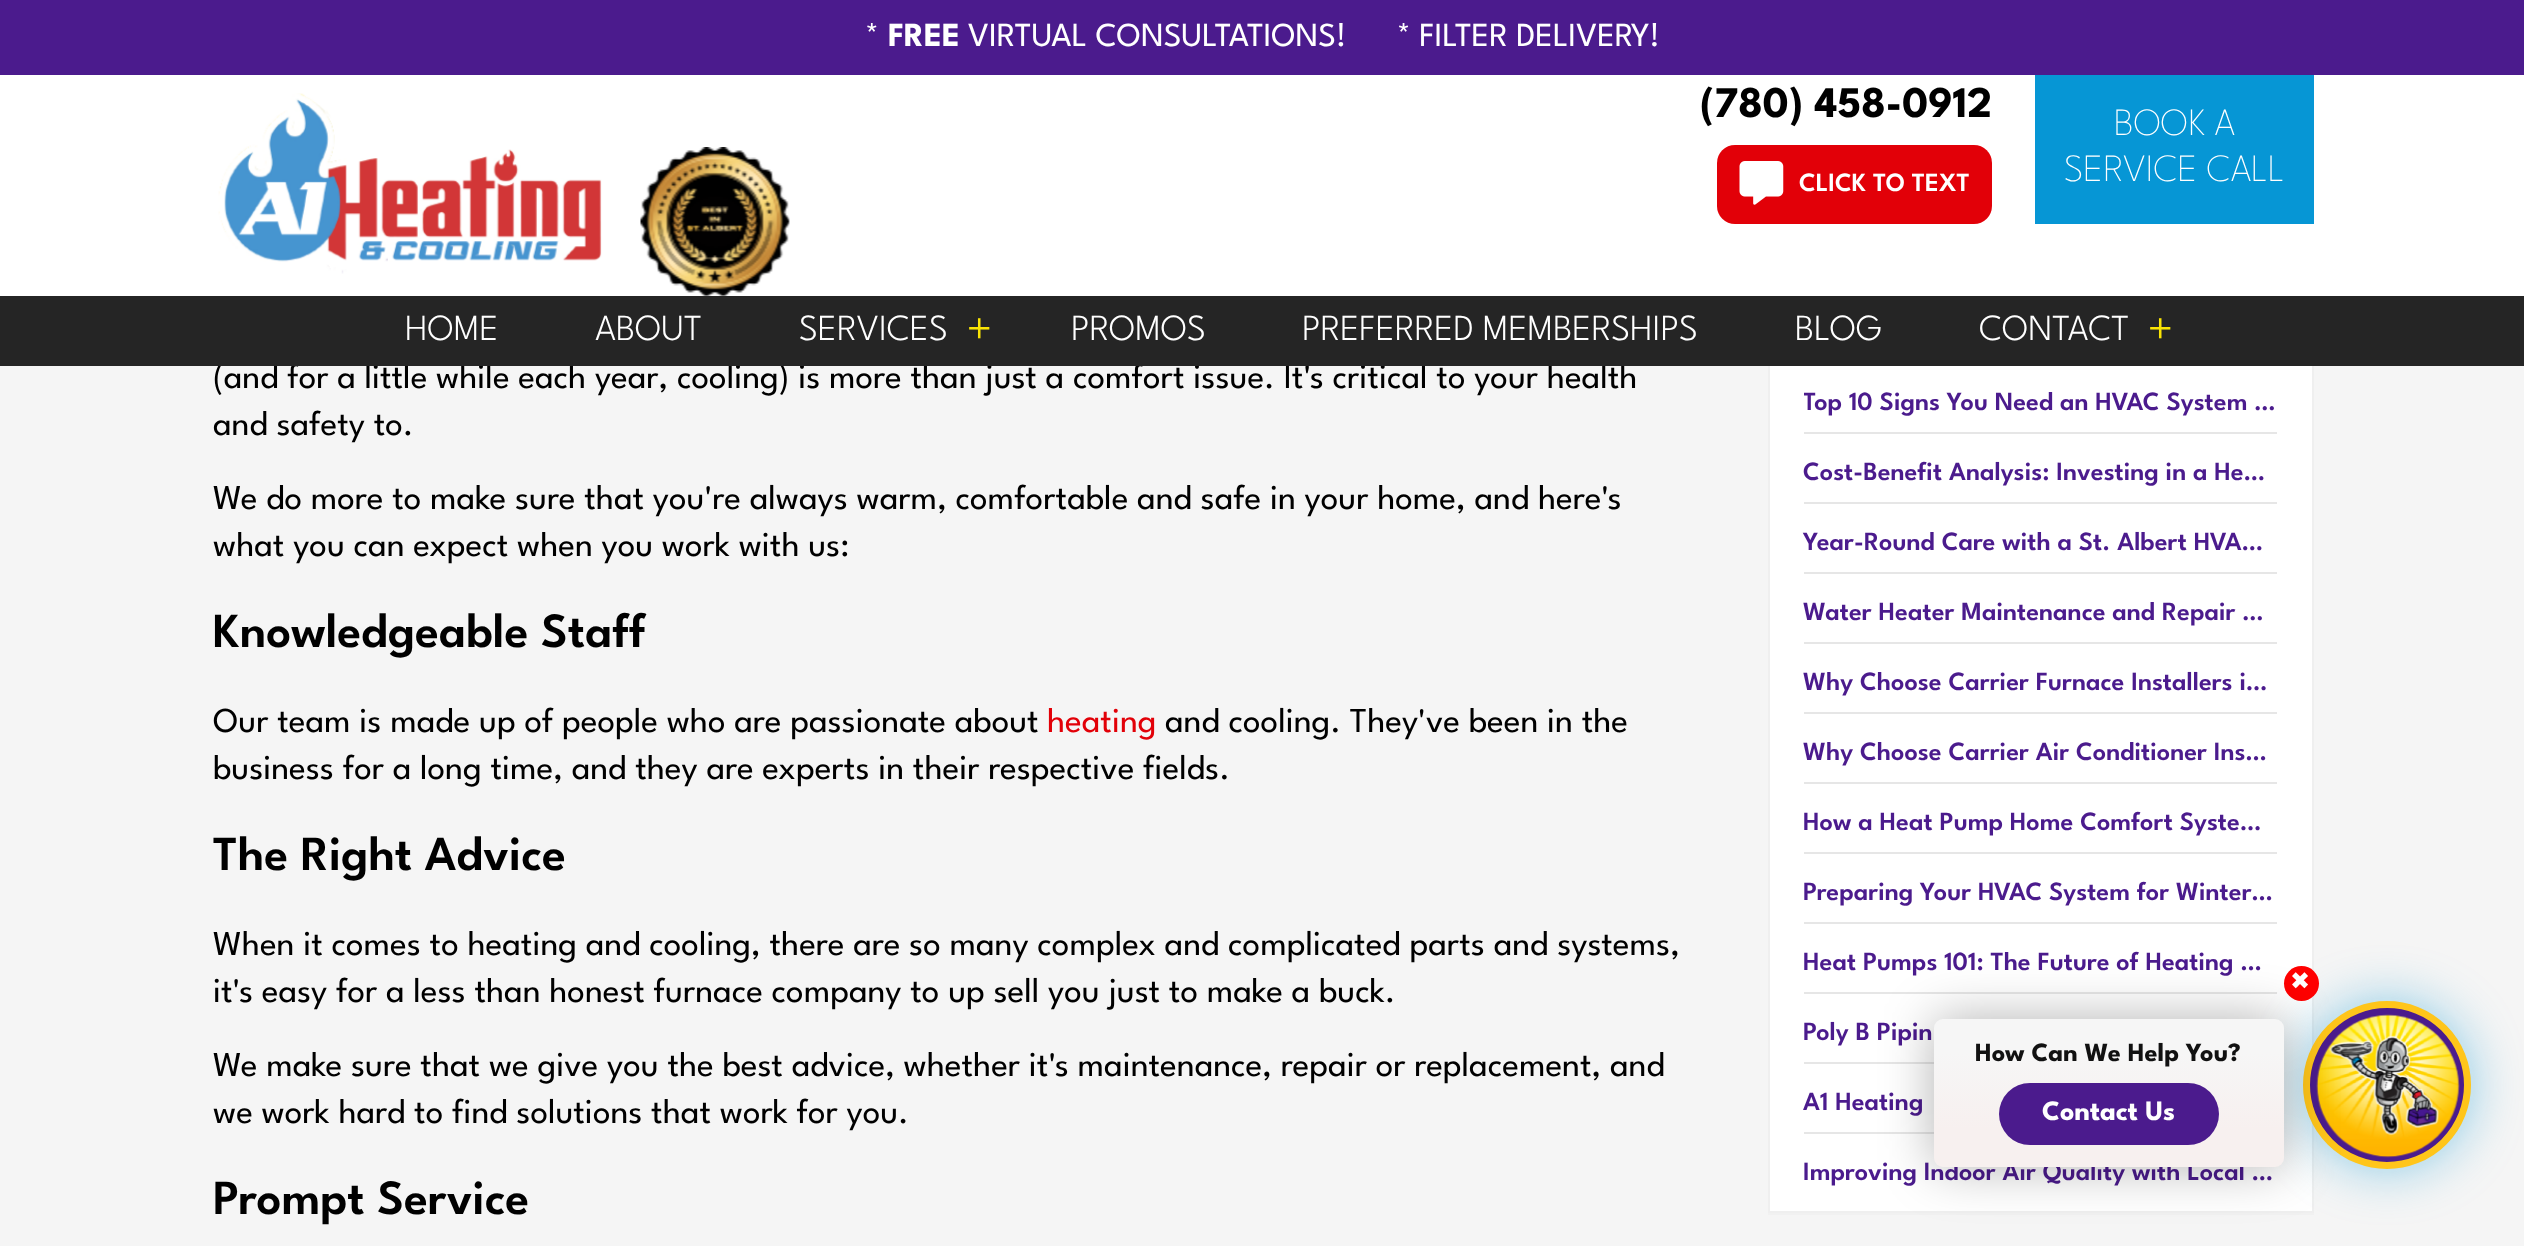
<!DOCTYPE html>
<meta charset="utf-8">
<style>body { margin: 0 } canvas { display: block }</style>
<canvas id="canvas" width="2524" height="1246"></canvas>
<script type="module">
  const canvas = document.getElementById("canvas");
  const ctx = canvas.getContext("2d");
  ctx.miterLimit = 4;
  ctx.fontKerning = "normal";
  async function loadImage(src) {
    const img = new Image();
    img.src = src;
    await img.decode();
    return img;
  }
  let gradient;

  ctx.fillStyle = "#f5f5f5";
  ctx.fillRect(0, 0, 2524, 1246);
  ctx.fillStyle = "#ffffff";
  ctx.fillRect(1770, 366, 542, 845);
  ctx.strokeStyle = "#efefef";
  ctx.lineWidth = 2;
  ctx.strokeRect(1769, -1, 544, 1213);
  ctx.fillRect(0, 75, 2524, 221);
  ctx.fillStyle = "#4b1b8d";
  ctx.fillRect(0, 0, 2524, 75);
  ctx.font = "33.6px League Spartan";
  ctx.fillStyle = "#ffffff";
  ctx.fillText("*", 865, 46);
  ctx.font = "bold 33.6px League Spartan";
  ctx.fillText("FREE", 888, 46);
  ctx.font = "33.6px League Spartan";
  ctx.fillText("VIRTUAL CONSULTATIONS!      * FILTER DELIVERY!", 968, 46);
  ctx.drawImage(await loadImage("img1.png"), 218, 93, 384, 181);
  ctx.drawImage(await loadImage("img2.png"), 640, 147, 150, 149);
  ctx.font = "bold 43.75px League Spartan";
  ctx.fillStyle = "#000000";
  ctx.fillText("(780) 458-0912", 1700, 117);
  ctx.fillStyle = "#e20008";
  ctx.beginPath();
  ctx.roundRect(1717, 145, 275, 79, 18);
  ctx.fill();
  ctx.drawImage(await loadImage("img3.png"), 1739, 161, 45, 44);
  ctx.font = "600 26.25px League Spartan";
  ctx.fillStyle = "#ffffff";
  ctx.fillText("CLICK TO TEXT", 1799, 191);
  ctx.fillStyle = "#0696d5";
  ctx.fillRect(2035, 75, 279, 149);
  ctx.font = "100 38.5px League Spartan";
  ctx.fillStyle = "#ffffff";
  ctx.fillText("BOOK A", 2114, 135);
  ctx.fillText("SERVICE CALL", 2064, 181);
  ctx.font = "35px League Spartan";
  ctx.fillStyle = "#000000";
  ctx.fillText("(and for a little while each year, cooling) is more than just a comfort issue. It's critical to your health", 213, 388);
  ctx.fillStyle = "#252525";
  ctx.fillRect(0, 296, 2524, 70);
  ctx.font = "300 36.75px League Spartan";
  ctx.fillStyle = "#ffffff";
  ctx.fillText("HOME", 405, 340);
  ctx.fillText("ABOUT", 595, 340);
  ctx.fillText("SERVICES", 799, 340);
  ctx.font = "300 49px League Spartan";
  ctx.fillStyle = "#fae404";
  ctx.save();
  ctx.translate(992, 312);
  ctx.rotate(180 * Math.PI / 180);
  ctx.fillText("+", 0, 0);
  ctx.restore();
  ctx.font = "300 36.75px League Spartan";
  ctx.fillStyle = "#ffffff";
  ctx.fillText("PROMOS", 1071, 340);
  ctx.fillText("PREFERRED MEMBERSHIPS", 1302, 340);
  ctx.fillText("BLOG", 1795, 340);
  ctx.fillText("CONTACT", 1979, 340);
  ctx.font = "300 49px League Spartan";
  ctx.fillStyle = "#fae404";
  ctx.save();
  ctx.translate(2173, 312);
  ctx.rotate(180 * Math.PI / 180);
  ctx.fillText("+", 0, 0);
  ctx.restore();
  ctx.font = "35px League Spartan";
  ctx.fillStyle = "#000000";
  ctx.fillText("and safety to.", 213, 435);
  ctx.fillText("We do more to make sure that you're always warm, comfortable and safe in your home, and here's", 213, 509);
  ctx.fillText("what you can expect when you work with us:", 213, 556);
  ctx.font = "600 49px League Spartan";
  ctx.fillText("Knowledgeable Staff", 213, 647);
  ctx.font = "35px League Spartan";
  ctx.fillText("Our team is made up of people who are passionate about", 213, 732);
  ctx.fillStyle = "#e20008";
  ctx.fillText("heating", 1047, 732);
  ctx.fillStyle = "#000000";
  ctx.fillText("and cooling. They've been in the", 1165, 732);
  ctx.fillText("business for a long time, and they are experts in their respective fields.", 213, 779);
  ctx.font = "600 49px League Spartan";
  ctx.fillText("The Right Advice", 213, 870);
  ctx.font = "35px League Spartan";
  ctx.fillText("When it comes to heating and cooling, there are so many complex and complicated parts and systems,", 213, 955);
  ctx.fillText("it's easy for a less than honest furnace company to up sell you just to make a buck.", 213, 1002);
  ctx.fillText("We make sure that we give you the best advice, whether it's maintenance, repair or replacement, and", 213, 1076);
  ctx.fillText("we work hard to find solutions that work for you.", 213, 1123);
  ctx.font = "600 49px League Spartan";
  ctx.fillText("Prompt Service", 213, 1214);
  ctx.fillStyle = "#f1f1f1";
  ctx.beginPath();
  ctx.moveTo(1768, 1213);
  ctx.lineTo(1768, 1215);
  ctx.lineTo(2314, 1215);
  ctx.lineTo(2314, -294);
  ctx.lineTo(2314, 1213);
  ctx.closePath();
  ctx.fill();
  ctx.fillStyle = "#e6e6e6";
  ctx.fillRect(1804, 432, 473, 2);
  ctx.save();
  ctx.beginPath();
  ctx.rect(1804, 382, 473, 50);
  ctx.clip();
  ctx.font = "600 26.25px League Spartan";
  ctx.fillStyle = "#4b1b8d";
  ctx.fillText("Top 10 Signs You Need an HVAC System …", 1803, 410);
  ctx.restore();
  ctx.fillRect(1804, 502, 473, 2);
  ctx.font = "600 26.25px League Spartan";
  ctx.fillStyle = "#4b1b8d";
  ctx.fillText("Cost-Benefit Analysis: Investing in a He…", 1803, 480);
  ctx.fillStyle = "#e6e6e6";
  ctx.fillRect(1804, 572, 473, 2);
  ctx.fillStyle = "#4b1b8d";
  ctx.fillText("Year-Round Care with a St. Albert HVA…", 1803, 550);
  ctx.fillStyle = "#e6e6e6";
  ctx.fillRect(1804, 642, 473, 2);
  ctx.fillStyle = "#4b1b8d";
  ctx.fillText("Water Heater Maintenance and Repair …", 1803, 620);
  ctx.fillStyle = "#e6e6e6";
  ctx.fillRect(1804, 712, 473, 2);
  ctx.fillStyle = "#4b1b8d";
  ctx.fillText("Why Choose Carrier Furnace Installers i…", 1803, 690);
  ctx.fillStyle = "#e6e6e6";
  ctx.fillRect(1804, 782, 473, 2);
  ctx.fillStyle = "#4b1b8d";
  ctx.fillText("Why Choose Carrier Air Conditioner Ins…", 1803, 760);
  ctx.fillStyle = "#e6e6e6";
  ctx.fillRect(1804, 852, 473, 2);
  ctx.fillStyle = "#4b1b8d";
  ctx.fillText("How a Heat Pump Home Comfort Syste…", 1803, 830);
  ctx.fillStyle = "#e6e6e6";
  ctx.fillRect(1804, 922, 473, 2);
  ctx.fillStyle = "#4b1b8d";
  ctx.fillText("Preparing Your HVAC System for Winter…", 1803, 900);
  ctx.fillStyle = "#e6e6e6";
  ctx.fillRect(1804, 992, 473, 2);
  ctx.fillStyle = "#4b1b8d";
  ctx.fillText("Heat Pumps 101: The Future of Heating …", 1803, 970);
  ctx.fillStyle = "#e6e6e6";
  ctx.fillRect(1804, 1062, 130, 2);
  ctx.fillStyle = "#4b1b8d";
  ctx.fillText("Poly B Pipin", 1803, 1040);
  ctx.fillStyle = "#e6e6e6";
  ctx.fillRect(1804, 1132, 130, 2);
  ctx.fillStyle = "#4b1b8d";
  ctx.fillText("A1 Heating", 1803, 1110);
  ctx.fillText("Improving Indoor Air Quality with Local …", 1803, 1180);
  ctx.fillStyle = "rgba(6, 150, 213, 0.45)";
  ctx.filter = "blur(26px)";
  ctx.beginPath();
  ctx.roundRect(2303, 1001, 168, 168, 84);
  ctx.fill();
  ctx.filter = "none";
  ctx.fillStyle = "#ff0000";
  ctx.beginPath();
  ctx.arc(2301.5, 983.5, 17.5, 0, Math.PI * 2);
  ctx.fill();
  ctx.font = "24px DejaVu Sans";
  ctx.fillStyle = "#ffffff";
  ctx.fillText("✖", 2290, 989);
  ctx.fillStyle = "#4b1b8d";
  ctx.beginPath();
  ctx.arc(2387, 1085, 80.5, 0, Math.PI * 2);
  ctx.fill();
  ctx.strokeStyle = "#ffc51a";
  ctx.lineWidth = 7;
  ctx.stroke();
  ctx.drawImage(await loadImage("img4.png"), 2316, 1014, 144, 144);
  ctx.fillStyle = "rgba(0, 0, 0, 0.3)";
  ctx.filter = "blur(26px)";
  ctx.beginPath();
  ctx.roundRect(1934, 1019, 350, 148, 9);
  ctx.fill();
  ctx.filter = "none";
  gradient = ctx.createLinearGradient(2109, 1019, 2109, 1167);
  gradient.addColorStop(0.23, "#f6f6f6");
  gradient.addColorStop(0.74, "#f7f0ef");
  ctx.fillStyle = gradient;
  ctx.beginPath();
  ctx.roundRect(1934, 1019, 350, 148, 9);
  ctx.fill();
  ctx.font = "bold 26.25px League Spartan";
  ctx.fillStyle = "#111111";
  ctx.fillText("How Can We Help You?", 1975, 1061);
  ctx.fillStyle = "#4b1b8d";
  ctx.beginPath();
  ctx.roundRect(1999, 1083, 220, 62, 31);
  ctx.fill();
  ctx.font = "bold 28px League Spartan";
  ctx.fillStyle = "#ffffff";
  ctx.fillText("Contact Us", 2042, 1120);
</script>
